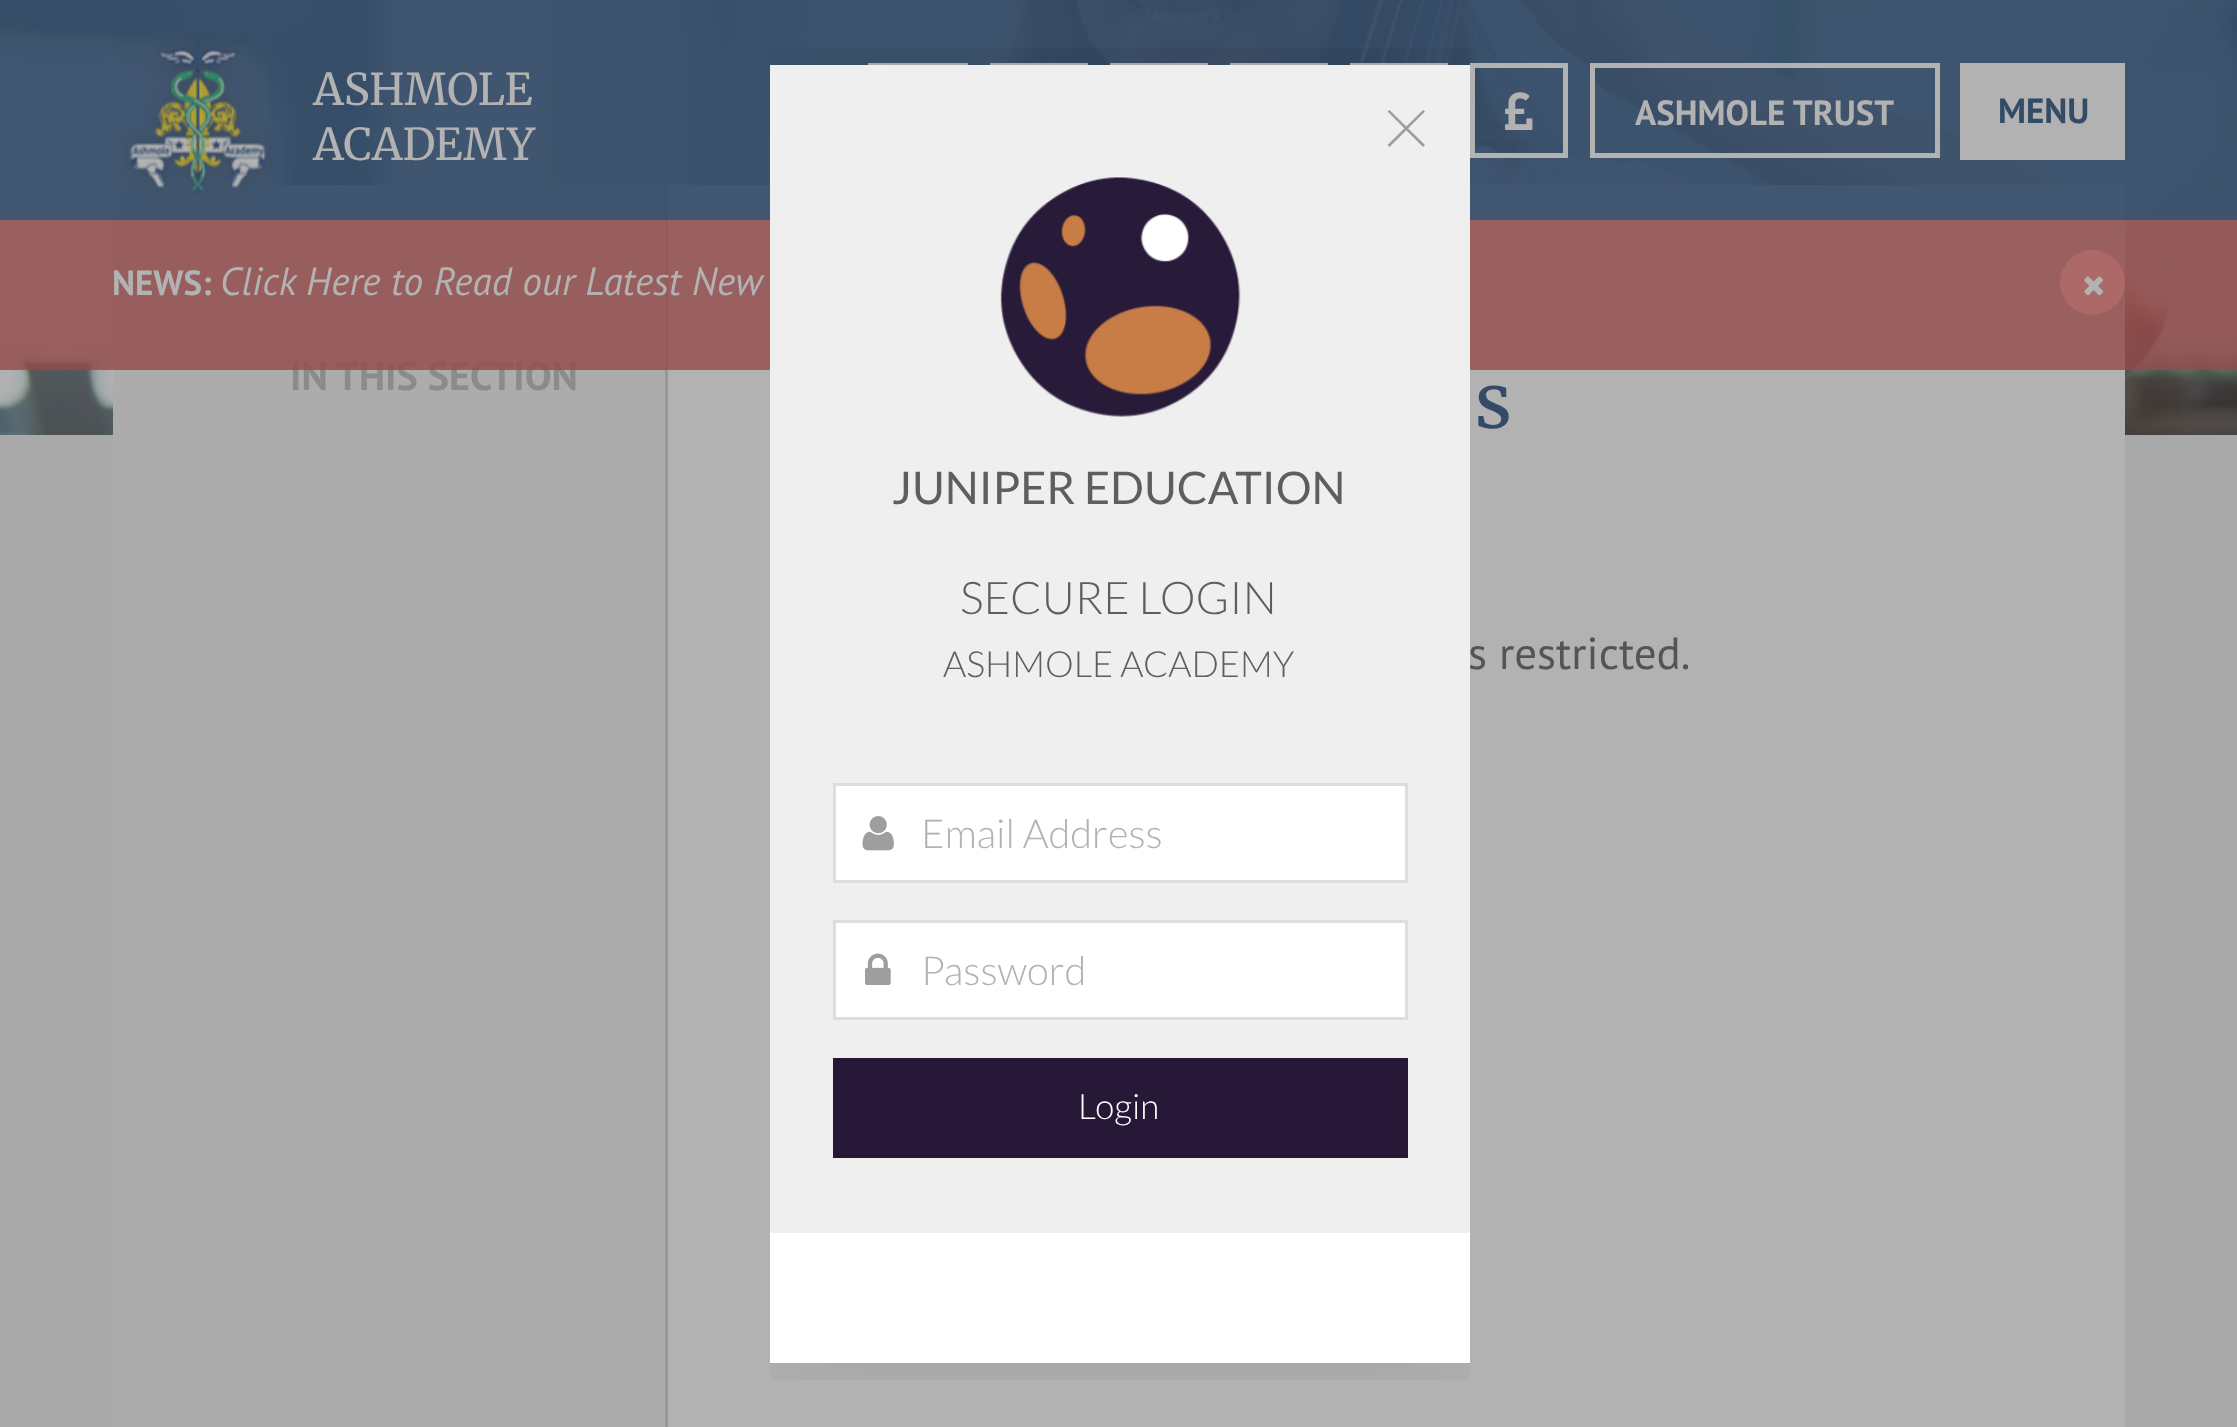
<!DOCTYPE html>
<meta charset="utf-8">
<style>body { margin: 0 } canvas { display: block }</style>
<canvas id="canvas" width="2237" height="1427"></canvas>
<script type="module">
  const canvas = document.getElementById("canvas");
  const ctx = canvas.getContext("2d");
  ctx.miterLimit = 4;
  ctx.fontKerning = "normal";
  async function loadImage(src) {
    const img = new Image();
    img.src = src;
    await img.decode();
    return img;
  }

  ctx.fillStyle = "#a9a9a9";
  ctx.fillRect(0, 0, 2237, 1427);
  ctx.drawImage(await loadImage("img1.png"), 0, 0, 2237, 435);
  ctx.fillStyle = "#b2b2b2";
  ctx.fillRect(668, 185, 1457, 1242);
  ctx.fillStyle = "#acacac";
  ctx.fillRect(113, 185, 552, 1242);
  ctx.fillStyle = "#989898";
  ctx.fillRect(665, 185, 3, 1242);
  ctx.fillStyle = "rgba(52, 75, 104, 0.9)";
  ctx.fillRect(0, 0, 2237, 220);
  ctx.drawImage(await loadImage("img2.png"), 121, 35, 153, 161);
  ctx.font = "300 43.75px Merriweather";
  ctx.fillStyle = "#b2b2b2";
  ctx.fillText("ASHMOLE", 313, 105);
  ctx.fillText("ACADEMY", 313, 160);
  ctx.strokeStyle = "#b2b2b2";
  ctx.lineWidth = 5;
  ctx.strokeRect(870.5, 65.5, 95, 90);
  ctx.strokeRect(992.5, 65.5, 93, 90);
  ctx.strokeRect(1112.5, 65.5, 93, 90);
  ctx.strokeRect(1232.5, 65.5, 93, 90);
  ctx.strokeRect(1352.5, 65.5, 93, 90);
  ctx.strokeRect(1472.5, 65.5, 93, 90);
  ctx.drawImage(await loadImage("img3.png"), 1505, 92, 28, 38);
  ctx.strokeRect(1592.5, 65.5, 345, 90);
  ctx.font = "bold 35px PT Sans";
  ctx.fillText("ASHMOLE TRUST", 1635, 125);
  ctx.fillRect(1960, 63, 165, 97);
  ctx.fillStyle = "#344b68";
  ctx.fillText("MENU", 1998, 123);
  ctx.font = "bold 40px PT Sans";
  ctx.fillStyle = "#8b8b8b";
  ctx.fillText("IN THIS SECTION", 290, 390);
  ctx.fillStyle = "rgba(147, 74, 74, 0.8)";
  ctx.fillRect(0, 220, 2237, 150);
  ctx.font = "bold 35px PT Sans";
  ctx.fillStyle = "#b2b2b2";
  ctx.fillText("NEWS:", 112, 295);
  ctx.font = "italic 39.4px PT Sans";
  ctx.fillText("Click Here to Read our Latest New", 220, 295);
  ctx.fillStyle = "#ad6868";
  ctx.beginPath();
  ctx.arc(2092.5, 282.5, 32.5, 0, Math.PI * 2);
  ctx.fill();
  ctx.drawImage(await loadImage("img4.png"), 2084, 276, 20, 20);
  ctx.font = "300 75px Merriweather";
  ctx.fillStyle = "#344b68";
  ctx.fillText("s", 1475, 428);
  ctx.font = "45px PT Sans";
  ctx.fillStyle = "#545454";
  ctx.fillText("s restricted.", 1468, 669);
  ctx.save();
  ctx.beginPath();
  ctx.rect(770, 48, 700, 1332);
  ctx.clip();
  ctx.fillStyle = "rgba(0, 0, 0, 0.1)";
  ctx.filter = "blur(62.5px)";
  ctx.beginPath();
  ctx.rect(770, 65, 700, 1298);
  ctx.fill();
  ctx.filter = "none";
  ctx.restore();
  ctx.fillStyle = "#efefef";
  ctx.fillRect(770, 65, 700, 1168);
  ctx.fillStyle = "#9e9e9e";
  ctx.beginPath();
  ctx.moveTo(1389.5, 110);
  ctx.lineTo(1425, 145);
  ctx.lineTo(1423, 147);
  ctx.lineTo(1387.5, 111.5);
  ctx.closePath();
  ctx.fill();
  ctx.beginPath();
  ctx.moveTo(1425, 111.5);
  ctx.lineTo(1389.5, 147);
  ctx.lineTo(1387.5, 145);
  ctx.lineTo(1423, 110);
  ctx.closePath();
  ctx.fill();
  ctx.drawImage(await loadImage("img5.png"), 1000, 177, 241, 240);
  ctx.font = "45px Lato";
  ctx.fillStyle = "#5e5e5e";
  ctx.fillText("JUNIPER EDUCATION", 892, 504);
  ctx.font = "300 45px Lato";
  ctx.fillText("SECURE LOGIN", 960, 614);
  ctx.font = "300 36px Lato";
  ctx.fillText("ASHMOLE ACADEMY", 943, 677);
  ctx.fillStyle = "#ffffff";
  ctx.beginPath();
  ctx.rect(834.5, 784.5, 572, 97);
  ctx.fill();
  ctx.strokeStyle = "#dddddd";
  ctx.lineWidth = 3;
  ctx.stroke();
  ctx.drawImage(await loadImage("img6.png"), 862, 816, 32, 35);
  ctx.font = "300 40px Lato";
  ctx.fillStyle = "#b2b2b2";
  ctx.fillText("Email Address", 921, 848);
  ctx.fillStyle = "#ffffff";
  ctx.beginPath();
  ctx.rect(834.5, 921.5, 572, 97);
  ctx.fill();
  ctx.stroke();
  ctx.drawImage(await loadImage("img7.png"), 865, 953, 26, 32);
  ctx.fillStyle = "#b2b2b2";
  ctx.fillText("Password", 921, 985);
  ctx.fillStyle = "#281838";
  ctx.beginPath();
  ctx.rect(834.5, 1059.5, 572, 97);
  ctx.fill();
  ctx.strokeStyle = "#261735";
  ctx.stroke();
  ctx.font = "300 35px Lato";
  ctx.fillStyle = "#ffffff";
  ctx.fillText("Login", 1078, 1119);
  ctx.fillRect(770, 1233, 700, 130);
</script>
